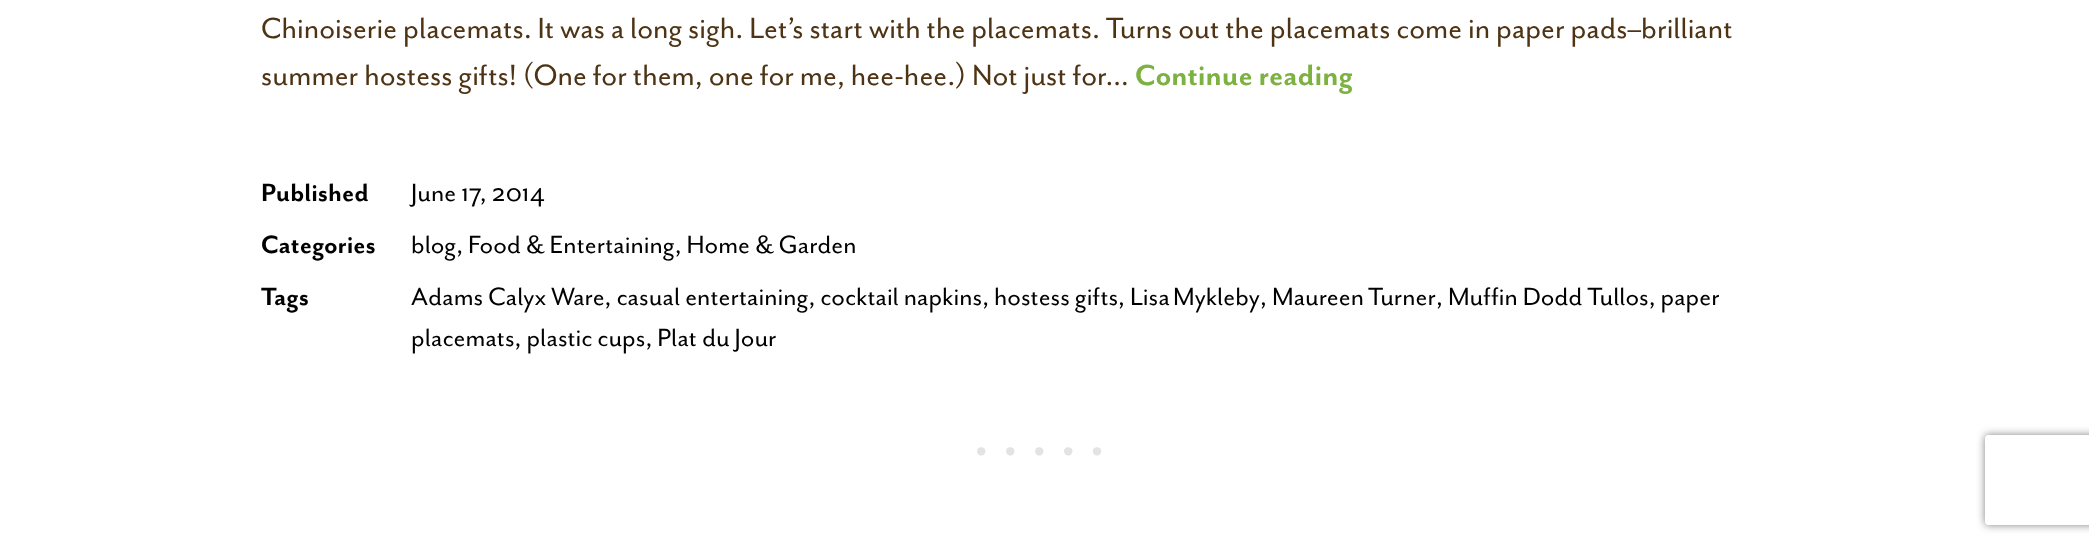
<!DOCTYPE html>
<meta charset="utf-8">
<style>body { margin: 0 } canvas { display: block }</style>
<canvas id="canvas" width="2089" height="545"></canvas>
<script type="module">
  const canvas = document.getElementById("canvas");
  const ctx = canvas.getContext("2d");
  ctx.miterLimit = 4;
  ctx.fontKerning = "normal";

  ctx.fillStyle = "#ffffff";
  ctx.fillRect(0, 0, 2089, 545);
  ctx.font = "33.6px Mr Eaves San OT";
  ctx.fillStyle = "#4e3414";
  ctx.fillText("Chinoiserie placemats. It was a long sigh. Let’s start with the placemats. Turns out the placemats come in paper pads–brilliant", 261, 38);
  ctx.fillText("summer hostess gifts! (One for them, one for me, hee-hee.) Not just for…", 261, 85);
  ctx.font = "bold 33.6px Mr Eaves San OT";
  ctx.fillStyle = "#7db141";
  ctx.fillText("Continue reading", 1135, 85);
  ctx.font = "bold 28.8px Mr Eaves San OT";
  ctx.fillStyle = "#000000";
  ctx.fillText("Published", 261, 201);
  ctx.font = "28.8px Mr Eaves San OT";
  ctx.fillText("June 17, 2014", 411, 201);
  ctx.font = "bold 28.8px Mr Eaves San OT";
  ctx.fillText("Categories", 261, 253);
  ctx.font = "28.8px Mr Eaves San OT";
  ctx.fillText("blog, Food & Entertaining, Home & Garden", 411, 253);
  ctx.font = "bold 28.8px Mr Eaves San OT";
  ctx.fillText("Tags", 261, 305);
  ctx.font = "28.8px Mr Eaves San OT";
  ctx.fillText("Adams Calyx Ware, casual entertaining, cocktail napkins, hostess gifts,", 411, 305);
  ctx.wordSpacing = "-2px";
  ctx.fillText("Lisa Mykleby", 1130, 305);
  ctx.wordSpacing = "0px";
  ctx.fillText(",", 1260, 305);
  ctx.wordSpacing = "-1px";
  ctx.fillText("Maureen Turner", 1272, 305);
  ctx.wordSpacing = "0px";
  ctx.fillText(", Muffin Dodd Tullos, paper", 1436, 305);
  ctx.fillText("placemats, plastic cups, Plat du Jour", 411, 346);
  ctx.letterSpacing = "10.5px";
  ctx.font = "77px Mr Eaves San OT";
  ctx.fillStyle = "#e3e3e3";
  ctx.fillText("·····", 972, 467);
  ctx.save();
  ctx.beginPath();
  ctx.moveTo(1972, 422);
  ctx.lineTo(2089, 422);
  ctx.lineTo(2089, 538);
  ctx.lineTo(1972, 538);
  ctx.closePath();
  ctx.moveTo(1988, 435);
  ctx.lineTo(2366, 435);
  ctx.bezierCurveTo(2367.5, 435, 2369, 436.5, 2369, 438);
  ctx.lineTo(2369, 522);
  ctx.bezierCurveTo(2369, 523.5, 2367.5, 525, 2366, 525);
  ctx.lineTo(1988, 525);
  ctx.bezierCurveTo(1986.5, 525, 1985, 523.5, 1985, 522);
  ctx.lineTo(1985, 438);
  ctx.bezierCurveTo(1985, 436.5, 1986.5, 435, 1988, 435);
  ctx.closePath();
  ctx.clip("evenodd");
  ctx.fillStyle = "#808080";
  ctx.filter = "blur(4px)";
  ctx.beginPath();
  ctx.roundRect(1985, 435, 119, 90, 3);
  ctx.fill();
  ctx.filter = "none";
  ctx.restore();
</script>
